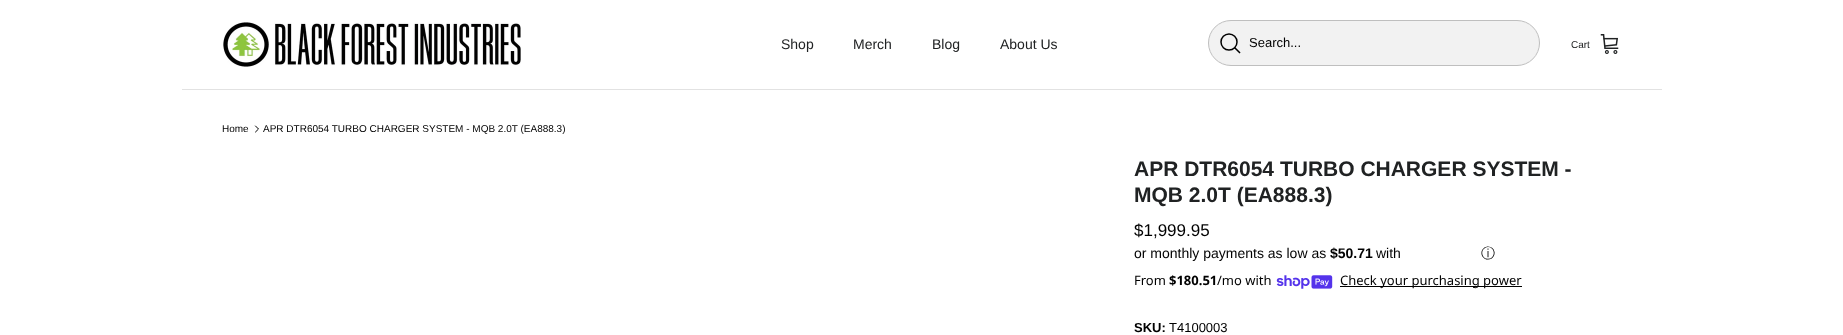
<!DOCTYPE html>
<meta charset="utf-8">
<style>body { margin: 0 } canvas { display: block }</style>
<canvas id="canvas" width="1843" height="335"></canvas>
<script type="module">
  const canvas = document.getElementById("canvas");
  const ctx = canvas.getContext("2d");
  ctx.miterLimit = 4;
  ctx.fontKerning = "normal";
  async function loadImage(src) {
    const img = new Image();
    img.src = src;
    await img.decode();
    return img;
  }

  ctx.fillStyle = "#ffffff";
  ctx.fillRect(0, 0, 1843, 335);
  ctx.fillStyle = "#f2f2f2";
  ctx.beginPath();
  ctx.roundRect(1208.5, 20.5, 331, 45, 22.5);
  ctx.fill();
  ctx.strokeStyle = "#bfbfbf";
  ctx.stroke();
  ctx.beginPath();
  ctx.arc(1229, 42, 8, 0, Math.PI * 2);
  ctx.strokeStyle = "#000000";
  ctx.lineWidth = 1.5;
  ctx.stroke();
  ctx.beginPath();
  ctx.moveTo(1235, 48);
  ctx.lineTo(1239.5, 52.5);
  ctx.lineCap = "square";
  ctx.stroke();
  ctx.font = "13px Liberation Sans";
  ctx.fillStyle = "#000000";
  ctx.fillText("Search...", 1249, 47);
  ctx.fillStyle = "#e2e2e2";
  ctx.fillRect(182, 89, 1480, 1);
  ctx.drawImage(await loadImage("img1.png"), 223, 22, 298, 45);
  ctx.font = "14px Liberation Sans";
  ctx.fillStyle = "#202223";
  ctx.fillText("Shop", 781, 49);
  ctx.fillText("Merch", 853, 49);
  ctx.fillText("Blog", 932, 49);
  ctx.fillText("About Us", 1000, 49);
  ctx.font = "10px Liberation Sans";
  ctx.fillText("Cart", 1571, 48);
  ctx.drawImage(await loadImage("img2.png"), 1600, 34, 19, 20);
  ctx.fillStyle = "#000000";
  ctx.fillText("Home", 222, 132);
  ctx.beginPath();
  ctx.moveTo(255.5, 132);
  ctx.lineTo(258.5, 129);
  ctx.lineTo(255.5, 126);
  ctx.lineWidth = 1;
  ctx.lineCap = "round";
  ctx.lineJoin = "round";
  ctx.stroke();
  ctx.fillText("APR DTR6054 TURBO CHARGER SYSTEM - MQB 2.0T (EA888.3)", 263, 132);
  ctx.font = "bold 21px Liberation Sans";
  ctx.fillStyle = "#202223";
  ctx.fillText("APR DTR6054 TURBO CHARGER SYSTEM -", 1134, 176);
  ctx.fillText("MQB 2.0T (EA888.3)", 1134, 202);
  ctx.font = "17px Liberation Sans";
  ctx.fillStyle = "#000000";
  ctx.fillText("$1,999.95", 1134, 236);
  ctx.font = "14px Liberation Sans";
  ctx.fillText("or monthly payments as low as", 1134, 258);
  ctx.font = "bold 14px Liberation Sans";
  ctx.fillText("$50.71", 1330, 258);
  ctx.font = "14px Liberation Sans";
  ctx.fillText("with", 1376, 258);
  ctx.font = "500 14px WenQuanYi Zen Hei";
  ctx.fillText("ⓘ", 1481, 258);
  ctx.font = "13px Noto Sans";
  ctx.fillText("From", 1134, 285);
  ctx.font = "bold 13px Noto Sans";
  ctx.fillText("$180.51", 1169, 285);
  ctx.font = "13px Noto Sans";
  ctx.fillText("/mo with", 1217, 285);
  ctx.drawImage(await loadImage("img3.png"), 1276, 275, 57, 14);
  ctx.fillRect(1340, 286, 182, 1);
  ctx.fillText("Check your purchasing power", 1340, 285);
  ctx.font = "bold 13px Liberation Sans";
  ctx.fillText("SKU:", 1134, 332);
  ctx.font = "13px Liberation Sans";
  ctx.fillText("T4100003", 1169, 332);
</script>
